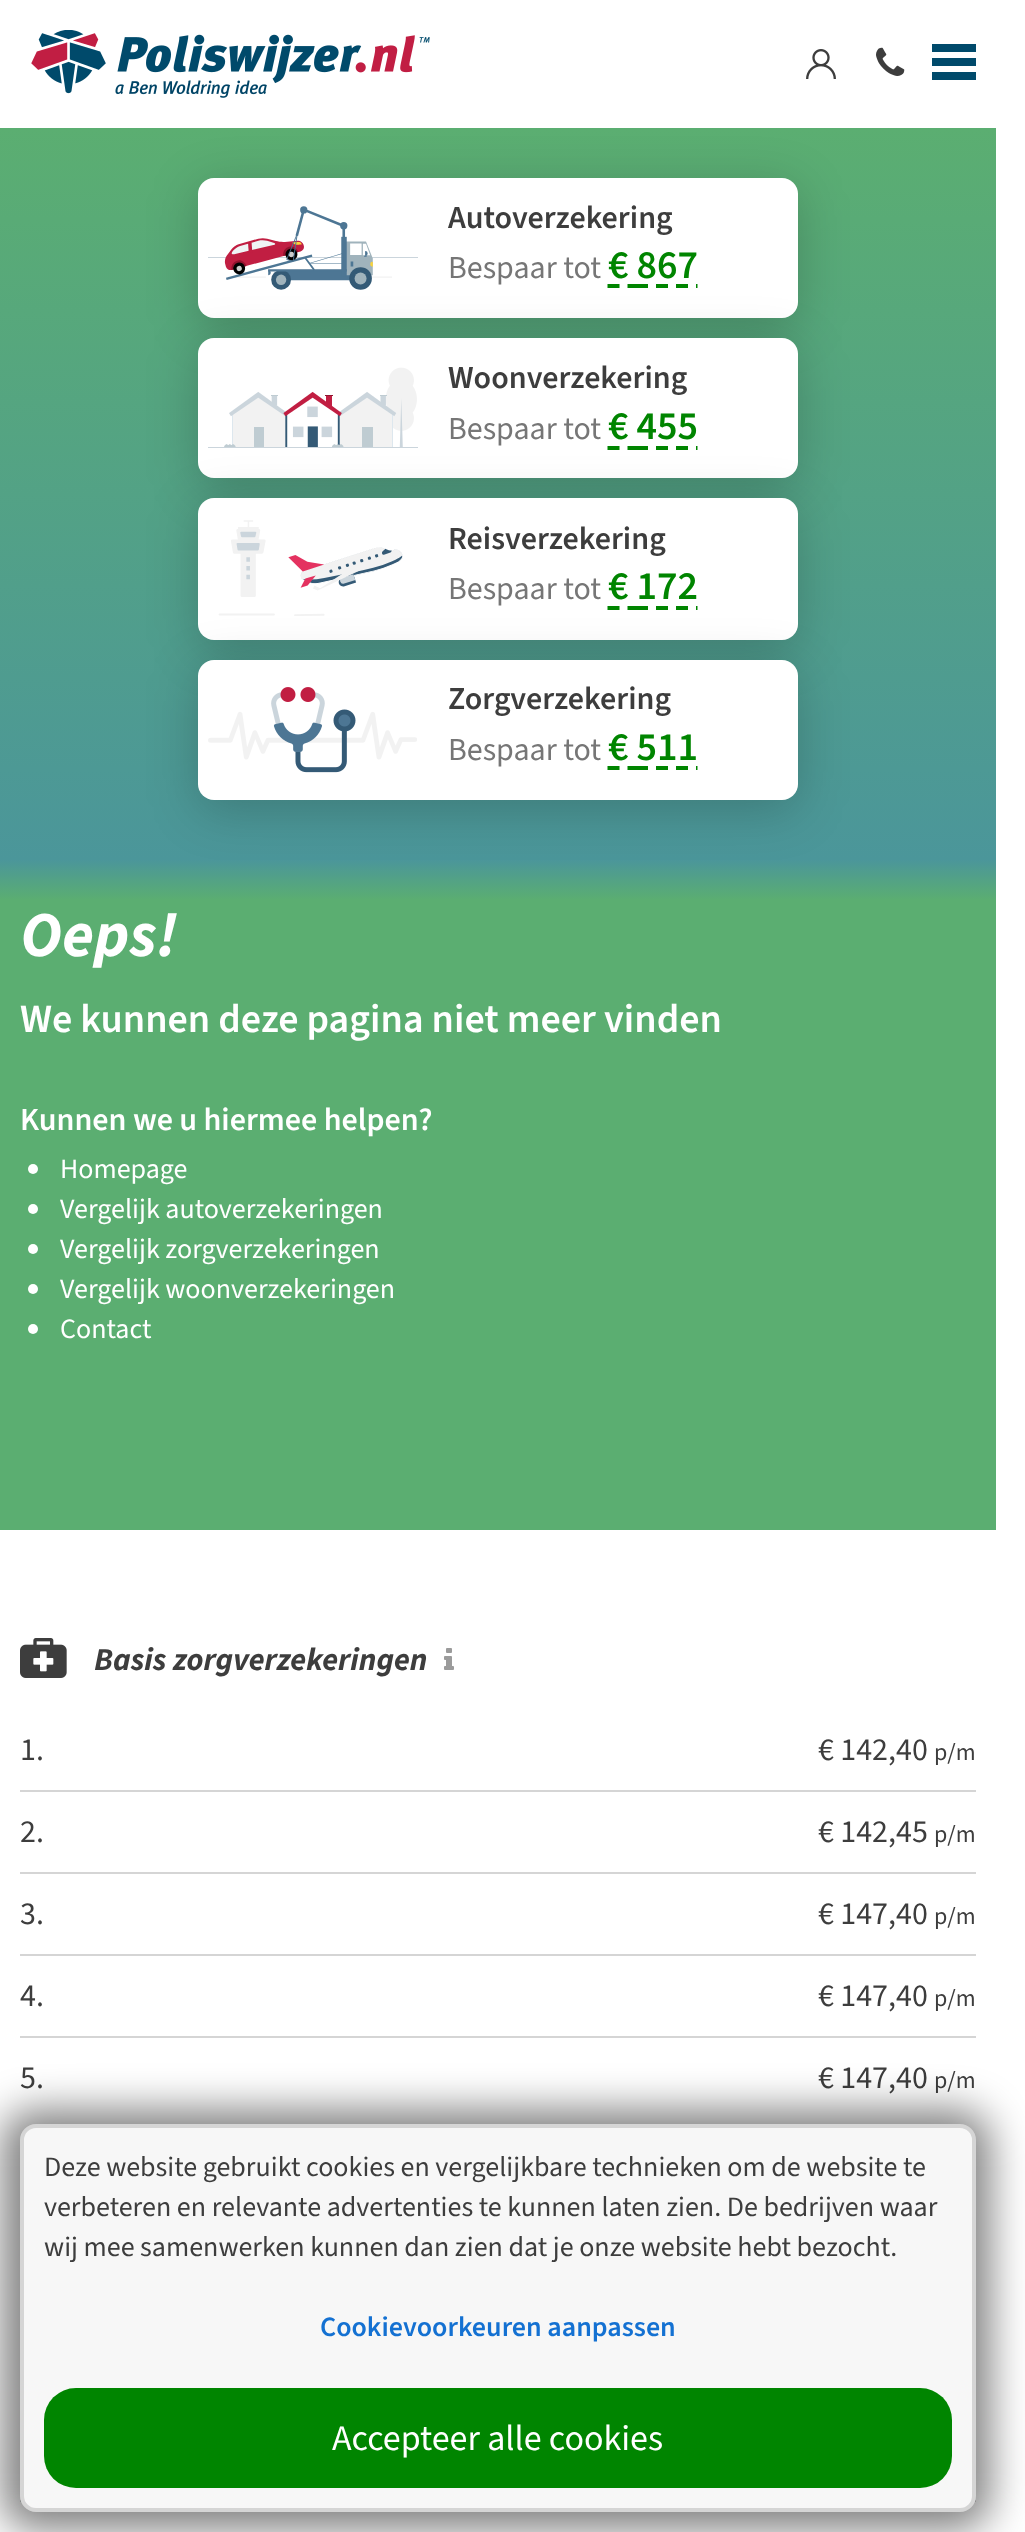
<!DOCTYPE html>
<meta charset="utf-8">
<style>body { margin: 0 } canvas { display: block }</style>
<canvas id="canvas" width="1025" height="2532"></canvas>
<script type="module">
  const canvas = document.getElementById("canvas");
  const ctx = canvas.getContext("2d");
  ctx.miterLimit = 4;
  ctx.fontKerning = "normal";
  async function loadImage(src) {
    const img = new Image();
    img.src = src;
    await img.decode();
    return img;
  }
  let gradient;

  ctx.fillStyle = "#ffffff";
  ctx.fillRect(0, 0, 1025, 2532);
  ctx.drawImage(await loadImage("img1.png"), 31, 30, 399, 68);
  ctx.drawImage(await loadImage("img2.png"), 806, 49, 30, 30);
  ctx.drawImage(await loadImage("img3.png"), 876, 47, 29, 29);
  ctx.fillStyle = "#004a6b";
  ctx.fillRect(932, 58, 44, 8);
  ctx.fillRect(932, 44, 44, 8);
  ctx.fillRect(932, 72, 44, 8);
  gradient = ctx.createLinearGradient(498, 128, 498, 860);
  gradient.addColorStop(0, "#5bae71");
  gradient.addColorStop(1, "#4b969a");
  ctx.fillStyle = gradient;
  ctx.fillRect(0, 128, 996, 732);
  ctx.fillStyle = "rgba(0, 0, 0, 0.2)";
  ctx.filter = "blur(25px)";
  ctx.beginPath();
  ctx.roundRect(198, 188, 600, 140, 16);
  ctx.fill();
  ctx.filter = "none";
  ctx.fillStyle = "#ffffff";
  ctx.beginPath();
  ctx.roundRect(198, 178, 600, 140, 16);
  ctx.fill();
  ctx.drawImage(await loadImage("img4.png"), 208, 206, 210, 84);
  ctx.font = "600 32px 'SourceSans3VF'";
  ctx.fillStyle = "#3d3d3d";
  ctx.fillText("Autoverzekering", 448, 228);
  ctx.font = "32px 'SourceSans3VF'";
  ctx.fillStyle = "#767676";
  ctx.fillText("Bespaar tot", 448, 278);
  ctx.font = "600 40px 'SourceSans3VF'";
  ctx.fillStyle = "#008500";
  ctx.fillText("€ 867", 608, 278);
  ctx.beginPath();
  ctx.moveTo(607.5, 286);
  ctx.lineTo(619.5, 286);
  ctx.moveTo(627.5, 286);
  ctx.lineTo(636, 286);
  ctx.strokeStyle = "#008500";
  ctx.lineWidth = 4;
  ctx.stroke();
  ctx.beginPath();
  ctx.moveTo(636, 286);
  ctx.lineTo(648, 286);
  ctx.moveTo(656, 286);
  ctx.lineTo(668, 286);
  ctx.moveTo(676, 286);
  ctx.lineTo(688, 286);
  ctx.moveTo(696, 286);
  ctx.lineTo(697.5, 286);
  ctx.stroke();
  ctx.fillStyle = "rgba(0, 0, 0, 0.2)";
  ctx.filter = "blur(25px)";
  ctx.beginPath();
  ctx.roundRect(198, 348, 600, 140, 16);
  ctx.fill();
  ctx.filter = "none";
  ctx.fillStyle = "#ffffff";
  ctx.beginPath();
  ctx.roundRect(198, 338, 600, 140, 16);
  ctx.fill();
  ctx.drawImage(await loadImage("img5.png"), 208, 367, 210, 81);
  ctx.font = "600 32px 'SourceSans3VF'";
  ctx.fillStyle = "#3d3d3d";
  ctx.fillText("Woonverzekering", 448, 388);
  ctx.font = "32px 'SourceSans3VF'";
  ctx.fillStyle = "#767676";
  ctx.fillText("Bespaar tot", 448, 439);
  ctx.font = "600 40px 'SourceSans3VF'";
  ctx.fillStyle = "#008500";
  ctx.fillText("€ 455", 608, 439);
  ctx.beginPath();
  ctx.moveTo(607.5, 448);
  ctx.lineTo(619.5, 448);
  ctx.moveTo(627.5, 448);
  ctx.lineTo(636, 448);
  ctx.stroke();
  ctx.beginPath();
  ctx.moveTo(636, 448);
  ctx.lineTo(648, 448);
  ctx.moveTo(656, 448);
  ctx.lineTo(668, 448);
  ctx.moveTo(676, 448);
  ctx.lineTo(688, 448);
  ctx.moveTo(696, 448);
  ctx.lineTo(697.5, 448);
  ctx.stroke();
  ctx.fillStyle = "rgba(0, 0, 0, 0.2)";
  ctx.filter = "blur(25px)";
  ctx.beginPath();
  ctx.roundRect(198, 508, 600, 142, 16);
  ctx.fill();
  ctx.filter = "none";
  ctx.fillStyle = "#ffffff";
  ctx.beginPath();
  ctx.roundRect(198, 498, 600, 142, 16);
  ctx.fill();
  ctx.drawImage(await loadImage("img6.png"), 218, 520, 185, 96);
  ctx.font = "600 32px 'SourceSans3VF'";
  ctx.fillStyle = "#3d3d3d";
  ctx.fillText("Reisverzekering", 448, 549);
  ctx.font = "32px 'SourceSans3VF'";
  ctx.fillStyle = "#767676";
  ctx.fillText("Bespaar tot", 448, 599);
  ctx.font = "600 40px 'SourceSans3VF'";
  ctx.fillStyle = "#008500";
  ctx.fillText("€ 172", 608, 599);
  ctx.beginPath();
  ctx.moveTo(607.5, 608);
  ctx.lineTo(619.5, 608);
  ctx.moveTo(627.5, 608);
  ctx.lineTo(636, 608);
  ctx.stroke();
  ctx.beginPath();
  ctx.moveTo(636, 608);
  ctx.lineTo(648, 608);
  ctx.moveTo(656, 608);
  ctx.lineTo(668, 608);
  ctx.moveTo(676, 608);
  ctx.lineTo(688, 608);
  ctx.moveTo(696, 608);
  ctx.lineTo(697.5, 608);
  ctx.stroke();
  ctx.fillStyle = "rgba(0, 0, 0, 0.2)";
  ctx.filter = "blur(25px)";
  ctx.beginPath();
  ctx.roundRect(198, 670, 600, 140, 16);
  ctx.fill();
  ctx.filter = "none";
  ctx.fillStyle = "#ffffff";
  ctx.beginPath();
  ctx.roundRect(198, 660, 600, 140, 16);
  ctx.fill();
  ctx.drawImage(await loadImage("img7.png"), 208, 687, 209, 86);
  ctx.font = "600 32px 'SourceSans3VF'";
  ctx.fillStyle = "#3d3d3d";
  ctx.fillText("Zorgverzekering", 448, 709);
  ctx.font = "32px 'SourceSans3VF'";
  ctx.fillStyle = "#767676";
  ctx.fillText("Bespaar tot", 448, 760);
  ctx.font = "600 40px 'SourceSans3VF'";
  ctx.fillStyle = "#008500";
  ctx.fillText("€ 511", 608, 760);
  ctx.beginPath();
  ctx.moveTo(607.5, 768);
  ctx.lineTo(619.5, 768);
  ctx.moveTo(627.5, 768);
  ctx.lineTo(636, 768);
  ctx.stroke();
  ctx.beginPath();
  ctx.moveTo(636, 768);
  ctx.lineTo(648, 768);
  ctx.moveTo(656, 768);
  ctx.lineTo(668, 768);
  ctx.moveTo(676, 768);
  ctx.lineTo(688, 768);
  ctx.moveTo(696, 768);
  ctx.lineTo(697.5, 768);
  ctx.stroke();
  ctx.fillStyle = "#5bae71";
  ctx.fillRect(0, 900, 996, 630);
  gradient = ctx.createLinearGradient(478, 860, 478, 900);
  gradient.addColorStop(0, "#4b969a");
  gradient.addColorStop(1, "#5bae71");
  ctx.fillStyle = gradient;
  ctx.fillRect(0, 860, 996, 40);
  ctx.font = "italic bold 64px 'SourceSans3VF'";
  ctx.fillStyle = "#ffffff";
  ctx.fillText("Oeps!", 20, 956);
  ctx.font = "600 40px 'SourceSans3VF'";
  ctx.fillText("We kunnen deze pagina niet meer vinden", 20, 1032);
  ctx.font = "600 32px 'SourceSans3VF'";
  ctx.fillText("Kunnen we u hiermee helpen?", 20, 1130);
  ctx.beginPath();
  ctx.arc(33, 1169, 5, 0, Math.PI * 2);
  ctx.fill();
  ctx.font = "28px 'SourceSans3VF'";
  ctx.fillText("Homepage", 60, 1178);
  ctx.beginPath();
  ctx.arc(33, 1209, 5, 0, Math.PI * 2);
  ctx.fill();
  ctx.fillText("Vergelijk autoverzekeringen", 60, 1218);
  ctx.beginPath();
  ctx.arc(33, 1249, 5, 0, Math.PI * 2);
  ctx.fill();
  ctx.fillText("Vergelijk zorgverzekeringen", 60, 1258);
  ctx.beginPath();
  ctx.arc(33, 1289, 5, 0, Math.PI * 2);
  ctx.fill();
  ctx.fillText("Vergelijk woonverzekeringen", 60, 1298);
  ctx.beginPath();
  ctx.arc(33, 1329, 5, 0, Math.PI * 2);
  ctx.fill();
  ctx.fillText("Contact", 60, 1338);
  ctx.drawImage(await loadImage("img8.png"), 20, 1638, 47, 40);
  ctx.font = "italic bold 32px 'SourceSans3VF'";
  ctx.fillStyle = "#3d3d3d";
  ctx.fillText("Basis zorgverzekeringen", 94, 1670);
  ctx.drawImage(await loadImage("img9.png"), 444, 1648, 10, 22);
  ctx.font = "32px 'SourceSans3VF'";
  ctx.fillText("1.", 20, 1760);
  ctx.fillText("€ 142,40", 818, 1760);
  ctx.font = "24px 'SourceSans3VF'";
  ctx.fillText("p/m", 934, 1760);
  ctx.fillStyle = "#d5d5d5";
  ctx.fillRect(20, 1790, 956, 2);
  ctx.font = "32px 'SourceSans3VF'";
  ctx.fillStyle = "#3d3d3d";
  ctx.fillText("2.", 20, 1842);
  ctx.fillText("€ 142,45", 818, 1842);
  ctx.font = "24px 'SourceSans3VF'";
  ctx.fillText("p/m", 934, 1842);
  ctx.fillStyle = "#d5d5d5";
  ctx.fillRect(20, 1872, 956, 2);
  ctx.font = "32px 'SourceSans3VF'";
  ctx.fillStyle = "#3d3d3d";
  ctx.fillText("3.", 20, 1924);
  ctx.fillText("€ 147,40", 818, 1924);
  ctx.font = "24px 'SourceSans3VF'";
  ctx.fillText("p/m", 934, 1924);
  ctx.fillStyle = "#d5d5d5";
  ctx.fillRect(20, 1954, 956, 2);
  ctx.font = "32px 'SourceSans3VF'";
  ctx.fillStyle = "#3d3d3d";
  ctx.fillText("4.", 20, 2006);
  ctx.fillText("€ 147,40", 818, 2006);
  ctx.font = "24px 'SourceSans3VF'";
  ctx.fillText("p/m", 934, 2006);
  ctx.fillStyle = "#d5d5d5";
  ctx.fillRect(20, 2036, 956, 2);
  ctx.font = "32px 'SourceSans3VF'";
  ctx.fillStyle = "#3d3d3d";
  ctx.fillText("5.", 20, 2088);
  ctx.fillText("€ 147,40", 818, 2088);
  ctx.font = "24px 'SourceSans3VF'";
  ctx.fillText("p/m", 934, 2088);
  ctx.fillStyle = "#d5d5d5";
  ctx.fillRect(20, 2500, 956, 2);
  ctx.fillStyle = "rgba(0, 0, 0, 0.5)";
  ctx.filter = "blur(20px)";
  ctx.beginPath();
  ctx.roundRect(2, 2110, 988, 420, 32);
  ctx.fill();
  ctx.filter = "none";
  ctx.fillStyle = "#f7f7f7";
  ctx.beginPath();
  ctx.roundRect(22, 2126, 952, 384, 14);
  ctx.fill();
  ctx.strokeStyle = "#d5d5d5";
  ctx.stroke();
  ctx.font = "28px 'SourceSans3VF'";
  ctx.fillStyle = "#3d3d3d";
  ctx.fillText("Deze website gebruikt cookies en vergelijkbare technieken om de website te", 44, 2176);
  ctx.fillText("verbeteren en relevante advertenties te kunnen laten zien. De bedrijven waar", 44, 2216);
  ctx.fillText("wij mee samenwerken kunnen dan zien dat je onze website hebt bezocht.", 44, 2256);
  ctx.font = "600 28px 'SourceSans3VF'";
  ctx.fillStyle = "#1471d2";
  ctx.fillText("Cookievoorkeuren aanpassen", 320, 2336);
  ctx.fillStyle = "#008500";
  ctx.beginPath();
  ctx.roundRect(44, 2388, 908, 100, 32);
  ctx.fill();
  ctx.font = "36px 'SourceSans3VF'";
  ctx.fillStyle = "#ffffff";
  ctx.fillText("Accepteer alle cookies", 332, 2450);
</script>
